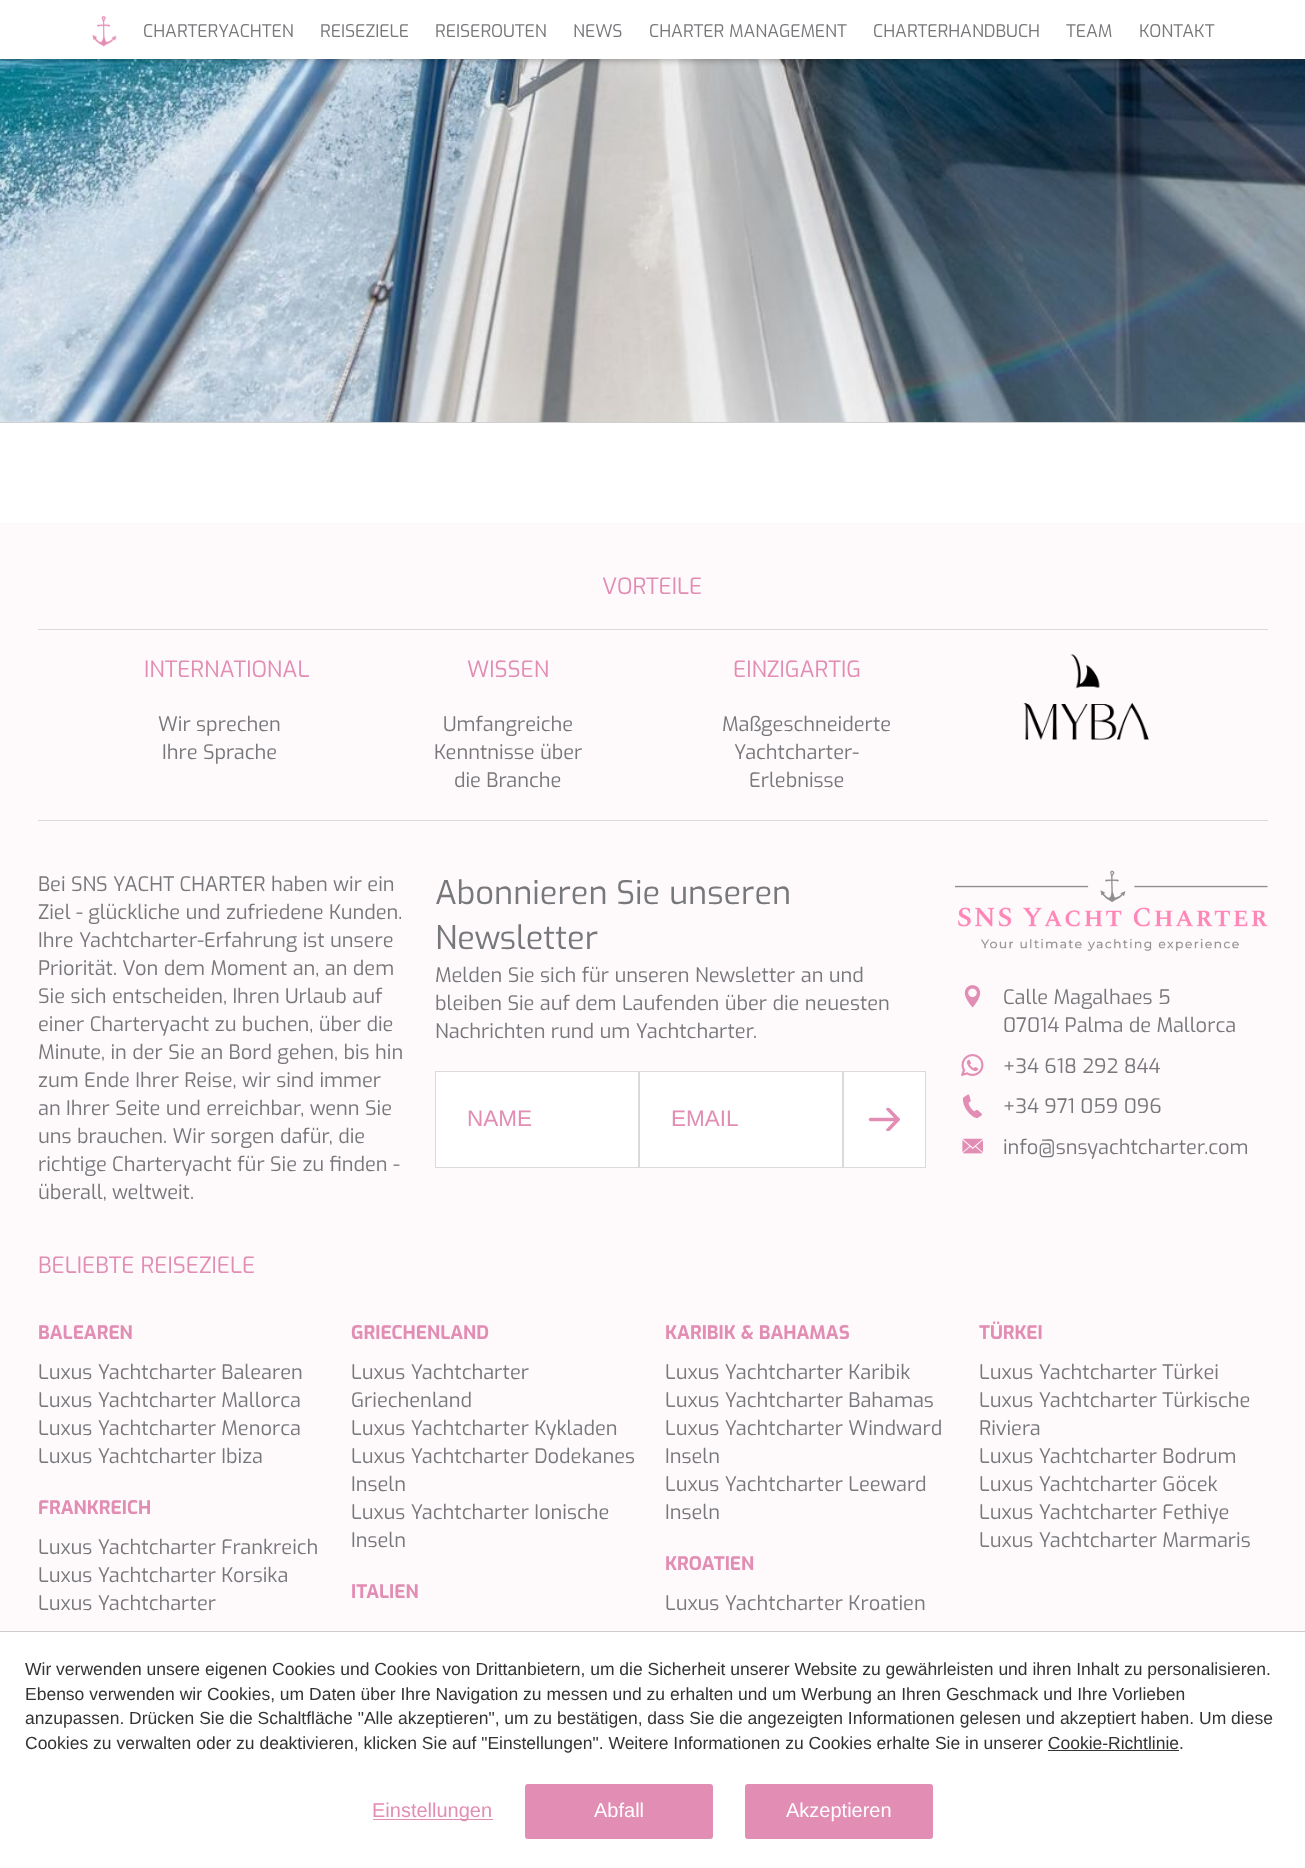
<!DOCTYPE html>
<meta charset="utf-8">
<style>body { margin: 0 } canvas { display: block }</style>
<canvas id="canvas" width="1305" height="1868"></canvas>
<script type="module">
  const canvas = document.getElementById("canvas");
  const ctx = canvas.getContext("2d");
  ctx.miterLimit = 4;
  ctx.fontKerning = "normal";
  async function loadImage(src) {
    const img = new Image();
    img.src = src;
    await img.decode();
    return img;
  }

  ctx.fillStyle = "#ffffff";
  ctx.fillRect(0, 0, 1305, 1868);
  ctx.drawImage(await loadImage("img2.png"), 0, 59, 1305, 363);
  ctx.fillStyle = "rgba(0, 0, 0, 0.3)";
  ctx.filter = "blur(3px)";
  ctx.beginPath();
  ctx.rect(1, -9, 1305, 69);
  ctx.fill();
  ctx.filter = "none";
  ctx.fillStyle = "#ffffff";
  ctx.fillRect(0, 0, 1305, 59);
  ctx.drawImage(await loadImage("img1.png"), 92, 16, 25, 31);
  ctx.font = "17.5px Exo";
  ctx.fillStyle = "#77787b";
  ctx.fillText("CHARTERYACHTEN", 143, 37);
  ctx.fillText("REISEZIELE", 320, 37);
  ctx.fillText("REISEROUTEN", 435, 37);
  ctx.fillText("NEWS", 573, 37);
  ctx.fillText("CHARTER MANAGEMENT", 649, 37);
  ctx.fillText("CHARTERHANDBUCH", 873, 37);
  ctx.fillText("TEAM", 1066, 37);
  ctx.fillText("KONTAKT", 1139, 37);
  ctx.fillStyle = "#d1d1d1";
  ctx.fillRect(0, 422, 1305, 1);
  ctx.fillStyle = "#fef9fb";
  ctx.fillRect(0, 523, 1305, 1108);
  ctx.font = "22.5px Exo";
  ctx.fillStyle = "#e28db3";
  ctx.fillText("VORTEILE", 602, 594);
  ctx.fillStyle = "#dbdada";
  ctx.fillRect(38, 629, 1230, 1);
  ctx.fillRect(38, 820, 1230, 1);
  ctx.fillStyle = "#e28db3";
  ctx.fillText("INTERNATIONAL", 144, 677);
  ctx.font = "20px Exo";
  ctx.fillStyle = "#77787b";
  ctx.fillText("Wir sprechen", 158, 731);
  ctx.fillText("Ihre Sprache", 162, 759);
  ctx.font = "22.5px Exo";
  ctx.fillStyle = "#e28db3";
  ctx.fillText("WISSEN", 467, 677);
  ctx.font = "20px Exo";
  ctx.fillStyle = "#77787b";
  ctx.fillText("Umfangreiche", 443, 731);
  ctx.fillText("Kenntnisse über", 434, 759);
  ctx.fillText("die Branche", 454, 787);
  ctx.font = "22.5px Exo";
  ctx.fillStyle = "#e28db3";
  ctx.fillText("EINZIGARTIG", 733, 677);
  ctx.font = "20px Exo";
  ctx.fillStyle = "#77787b";
  ctx.fillText("Maßgeschneiderte", 722, 731);
  ctx.fillText("Yachtcharter-", 734, 759);
  ctx.fillText("Erlebnisse", 749, 787);
  ctx.drawImage(await loadImage("img3.png"), 1023, 654, 126, 86);
  ctx.fillText("Bei SNS YACHT CHARTER haben wir ein", 38, 891);
  ctx.fillText("Ziel - glückliche und zufriedene Kunden.", 38, 919);
  ctx.fillText("Ihre Yachtcharter-Erfahrung ist unsere", 38, 947);
  ctx.fillText("Priorität. Von dem Moment an, an dem", 38, 975);
  ctx.fillText("Sie sich entscheiden, Ihren Urlaub auf", 38, 1003);
  ctx.fillText("einer Charteryacht zu buchen, über die", 38, 1031);
  ctx.fillText("Minute, in der Sie an Bord gehen, bis hin", 38, 1059);
  ctx.fillText("zum Ende Ihrer Reise, wir sind immer", 38, 1087);
  ctx.fillText("an Ihrer Seite und erreichbar, wenn Sie", 38, 1115);
  ctx.fillText("uns brauchen. Wir sorgen dafür, die", 38, 1143);
  ctx.fillText("richtige Charteryacht für Sie zu finden -", 38, 1171);
  ctx.fillText("überall, weltweit.", 38, 1199);
  ctx.font = "32.5px Exo";
  ctx.fillText("Abonnieren Sie unseren", 435, 904);
  ctx.fillText("Newsletter", 435, 949);
  ctx.font = "20px Exo";
  ctx.fillText("Melden Sie sich für unseren Newsletter an und", 435, 982);
  ctx.fillText("bleiben Sie auf dem Laufenden über die neuesten", 435, 1010);
  ctx.fillText("Nachrichten rund um Yachtcharter.", 435, 1038);
  ctx.fillStyle = "#ffffff";
  ctx.fillRect(436, 1072, 489, 95);
  ctx.strokeStyle = "#dbdada";
  ctx.strokeRect(435.5, 1071.5, 203, 96);
  ctx.font = "22.5px Liberation Sans";
  ctx.fillStyle = "#e28db3";
  ctx.fillText("NAME", 467, 1126);
  ctx.strokeRect(639.5, 1071.5, 203, 96);
  ctx.fillText("EMAIL", 671, 1126);
  ctx.beginPath();
  ctx.moveTo(870.5, 1119.5);
  ctx.lineTo(898, 1119.5);
  ctx.strokeStyle = "#e28db3";
  ctx.lineWidth = 3.5;
  ctx.lineCap = "round";
  ctx.lineJoin = "round";
  ctx.stroke();
  ctx.save();
  ctx.beginPath();
  ctx.rect(869, 1108, 31, 23);
  ctx.clip();
  ctx.beginPath();
  ctx.moveTo(888, 1109);
  ctx.lineTo(898, 1119.5);
  ctx.lineTo(888, 1130);
  ctx.stroke();
  ctx.restore();
  ctx.strokeStyle = "#dbdada";
  ctx.lineWidth = 1;
  ctx.lineJoin = "miter";
  ctx.strokeRect(843.5, 1071.5, 82, 96);
  ctx.drawImage(await loadImage("img4.png"), 955, 870, 313, 81);
  ctx.drawImage(await loadImage("img5.png"), 964, 985, 17, 23);
  ctx.font = "20px Exo";
  ctx.fillStyle = "#77787b";
  ctx.fillText("Calle Magalhaes 5", 1003, 1004);
  ctx.fillText("07014 Palma de Mallorca", 1003, 1032);
  ctx.drawImage(await loadImage("img6.png"), 961, 1054, 23, 22);
  ctx.fillText("+34 618 292 844", 1003, 1073);
  ctx.drawImage(await loadImage("img7.png"), 962, 1094, 20, 25);
  ctx.fillText("+34 971 059 096", 1003, 1113);
  ctx.drawImage(await loadImage("img8.png"), 962, 1138, 21, 16);
  ctx.fillText("info@snsyachtcharter.com", 1003, 1154);
  ctx.font = "22.5px Exo";
  ctx.fillStyle = "#e28db3";
  ctx.fillText("BELIEBTE REISEZIELE", 38, 1273);
  ctx.font = "bold 18.75px Exo";
  ctx.fillText("BALEAREN", 38, 1339);
  ctx.font = "20px Exo";
  ctx.fillStyle = "#77787b";
  ctx.fillText("Luxus Yachtcharter Balearen", 38, 1379);
  ctx.fillText("Luxus Yachtcharter Mallorca", 38, 1407);
  ctx.fillText("Luxus Yachtcharter Menorca", 38, 1435);
  ctx.fillText("Luxus Yachtcharter Ibiza", 38, 1463);
  ctx.font = "bold 18.75px Exo";
  ctx.fillStyle = "#e28db3";
  ctx.fillText("GRIECHENLAND", 351, 1339);
  ctx.font = "20px Exo";
  ctx.fillStyle = "#77787b";
  ctx.fillText("Luxus Yachtcharter", 351, 1379);
  ctx.fillText("Griechenland", 351, 1407);
  ctx.fillText("Luxus Yachtcharter Kykladen", 351, 1435);
  ctx.fillText("Luxus Yachtcharter Dodekanes", 351, 1463);
  ctx.fillText("Inseln", 351, 1491);
  ctx.fillText("Luxus Yachtcharter Ionische", 351, 1519);
  ctx.fillText("Inseln", 351, 1547);
  ctx.font = "bold 18.75px Exo";
  ctx.fillStyle = "#e28db3";
  ctx.fillText("KARIBIK & BAHAMAS", 665, 1339);
  ctx.font = "20px Exo";
  ctx.fillStyle = "#77787b";
  ctx.fillText("Luxus Yachtcharter Karibik", 665, 1379);
  ctx.fillText("Luxus Yachtcharter Bahamas", 665, 1407);
  ctx.fillText("Luxus Yachtcharter Windward", 665, 1435);
  ctx.fillText("Inseln", 665, 1463);
  ctx.fillText("Luxus Yachtcharter Leeward", 665, 1491);
  ctx.fillText("Inseln", 665, 1519);
  ctx.font = "bold 18.75px Exo";
  ctx.fillStyle = "#e28db3";
  ctx.fillText("TÜRKEI", 979, 1339);
  ctx.font = "20px Exo";
  ctx.fillStyle = "#77787b";
  ctx.fillText("Luxus Yachtcharter Türkei", 979, 1379);
  ctx.fillText("Luxus Yachtcharter Türkische", 979, 1407);
  ctx.fillText("Riviera", 979, 1435);
  ctx.fillText("Luxus Yachtcharter Bodrum", 979, 1463);
  ctx.fillText("Luxus Yachtcharter Göcek", 979, 1491);
  ctx.fillText("Luxus Yachtcharter Fethiye", 979, 1519);
  ctx.fillText("Luxus Yachtcharter Marmaris", 979, 1547);
  ctx.font = "bold 18.75px Exo";
  ctx.fillStyle = "#e28db3";
  ctx.fillText("FRANKREICH", 38, 1514);
  ctx.font = "20px Exo";
  ctx.fillStyle = "#77787b";
  ctx.fillText("Luxus Yachtcharter Frankreich", 38, 1554);
  ctx.fillText("Luxus Yachtcharter Korsika", 38, 1582);
  ctx.fillText("Luxus Yachtcharter", 38, 1610);
  ctx.font = "bold 18.75px Exo";
  ctx.fillStyle = "#e28db3";
  ctx.fillText("ITALIEN", 351, 1598);
  ctx.fillText("KROATIEN", 665, 1570);
  ctx.font = "20px Exo";
  ctx.fillStyle = "#77787b";
  ctx.fillText("Luxus Yachtcharter Kroatien", 665, 1610);
  ctx.fillStyle = "#cccccc";
  ctx.fillRect(0, 1631, 1305, 1);
  ctx.font = "17.5px Liberation Sans";
  ctx.fillStyle = "#333333";
  ctx.fillText("Wir verwenden unsere eigenen Cookies und Cookies von Drittanbietern, um die Sicherheit unserer Website zu gewährleisten und ihren Inhalt zu personalisieren.", 25, 1675);
  ctx.fillText("Ebenso verwenden wir Cookies, um Daten über Ihre Navigation zu messen und zu erhalten und um Werbung an Ihren Geschmack und Ihre Vorlieben", 25, 1700);
  ctx.fillText("anzupassen. Drücken Sie die Schaltfläche \"Alle akzeptieren\", um zu bestätigen, dass Sie die angezeigten Informationen gelesen und akzeptiert haben. Um diese", 25, 1724);
  ctx.fillText("Cookies zu verwalten oder zu deaktivieren, klicken Sie auf \"Einstellungen\". Weitere Informationen zu Cookies erhalte Sie in unserer Cookie-Richtlinie.", 25, 1749);
  ctx.fillRect(1048, 1750, 131, 1);
  ctx.fillStyle = "#e28db3";
  ctx.fillRect(373, 1819, 120, 1);
  ctx.font = "20px Liberation Sans";
  ctx.fillText("Einstellungen", 372, 1817);
  ctx.beginPath();
  ctx.roundRect(525.5, 1784.5, 187, 54, 2);
  ctx.fill();
  ctx.strokeStyle = "#e28db3";
  ctx.stroke();
  ctx.fillStyle = "#ffffff";
  ctx.fillText("Abfall", 594, 1817);
  ctx.fillStyle = "#e28db3";
  ctx.beginPath();
  ctx.roundRect(745.5, 1784.5, 187, 54, 2);
  ctx.fill();
  ctx.stroke();
  ctx.fillStyle = "#ffffff";
  ctx.fillText("Akzeptieren", 786, 1817);
</script>
